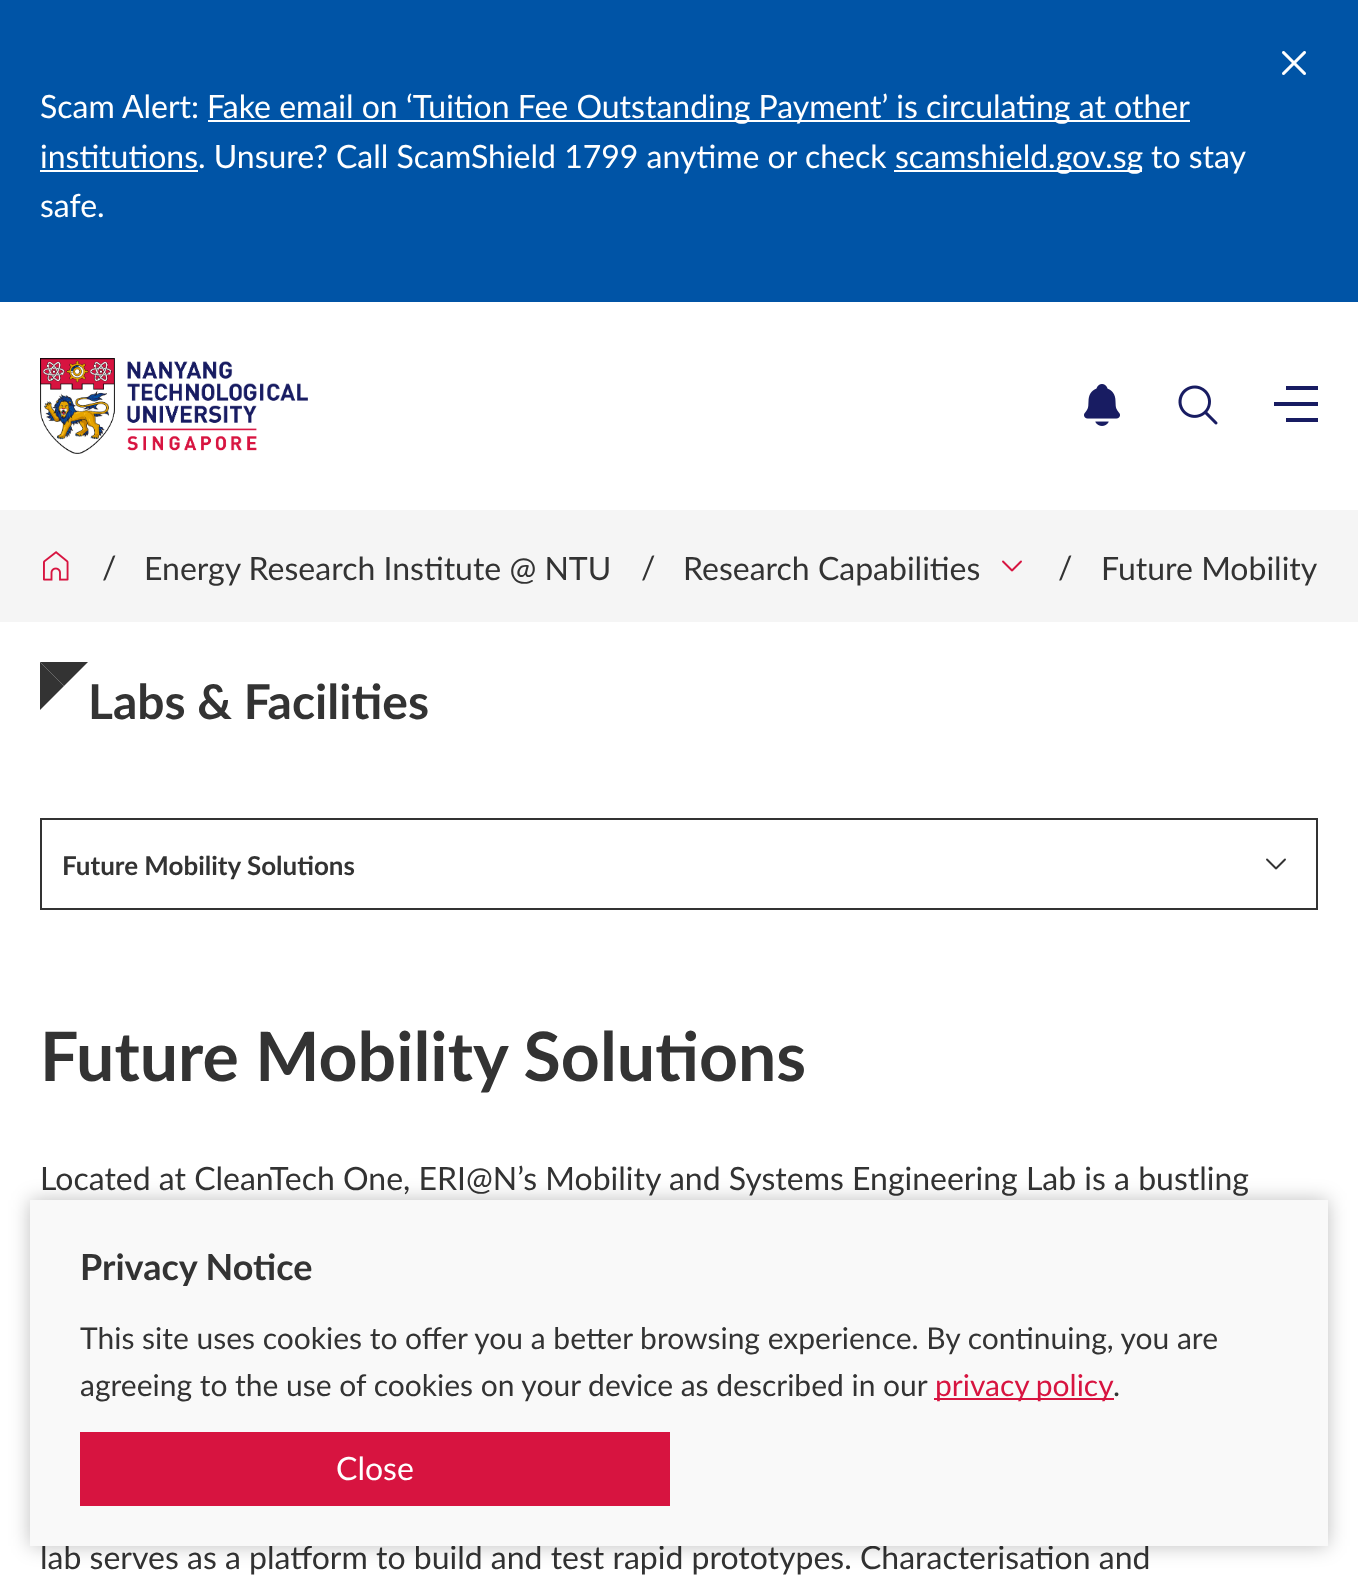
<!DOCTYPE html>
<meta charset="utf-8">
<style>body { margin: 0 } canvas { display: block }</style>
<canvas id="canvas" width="1358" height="1585"></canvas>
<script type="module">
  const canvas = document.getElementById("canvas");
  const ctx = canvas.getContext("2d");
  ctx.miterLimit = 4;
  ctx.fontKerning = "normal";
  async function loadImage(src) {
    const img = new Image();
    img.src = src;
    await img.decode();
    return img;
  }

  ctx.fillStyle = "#ffffff";
  ctx.fillRect(0, 0, 1358, 1585);
  ctx.fillStyle = "#0054a6";
  ctx.fillRect(0, 0, 1358, 302);
  ctx.drawImage(await loadImage("img1.png"), 1282, 51, 24, 24);
  ctx.font = "32px Lato";
  ctx.fillStyle = "#ffffff";
  ctx.fillText("Scam Alert:", 40, 118);
  ctx.fillRect(208, 120, 982, 2);
  ctx.fillText("Fake email on ‘Tuition Fee Outstanding Payment’ is circulating at other", 207, 118);
  ctx.fillRect(40, 170, 158, 2);
  ctx.fillText("institutions. Unsure? Call ScamShield 1799 anytime or check", 40, 168);
  ctx.fillRect(894, 170, 248, 2);
  ctx.fillText("scamshield.gov.sg", 895, 168);
  ctx.fillText("to stay", 1151, 168);
  ctx.fillText("safe.", 40, 217);
  ctx.drawImage(await loadImage("img2.png"), 40, 358, 268, 96);
  ctx.drawImage(await loadImage("img3.png"), 1084, 384, 36, 42);
  ctx.drawImage(await loadImage("img4.png"), 1178, 385, 40, 40);
  ctx.fillStyle = "#181c62";
  ctx.fillRect(1286, 386, 32, 4);
  ctx.fillRect(1274, 402, 44, 4);
  ctx.fillRect(1286, 418, 32, 4);
  ctx.fillStyle = "#f5f5f5";
  ctx.fillRect(0, 510, 1358, 112);
  ctx.drawImage(await loadImage("img5.png"), 43, 551, 26, 30);
  ctx.fillStyle = "#333333";
  ctx.fillText("/", 102, 579);
  ctx.fillText("Energy Research Institute @ NTU", 144, 580);
  ctx.fillText("/", 641, 579);
  ctx.fillText("Research Capabilities", 683, 580);
  ctx.drawImage(await loadImage("img6.png"), 1002, 560, 20, 12);
  ctx.fillText("/", 1058, 579);
  ctx.fillText("Future Mobility", 1101, 580);
  ctx.beginPath();
  ctx.moveTo(40, 662);
  ctx.lineTo(88, 662);
  ctx.lineTo(64, 686);
  ctx.closePath();
  ctx.fill();
  ctx.beginPath();
  ctx.moveTo(40, 710);
  ctx.lineTo(40, 662);
  ctx.lineTo(64, 686);
  ctx.closePath();
  ctx.fill();
  ctx.font = "bold 48px Lato";
  ctx.fillText("Labs & Facilities", 88, 719);
  ctx.strokeStyle = "#333333";
  ctx.lineWidth = 2;
  ctx.strokeRect(41, 819, 1276, 90);
  ctx.font = "bold 26px Lato";
  ctx.fillText("Future Mobility Solutions", 62, 875);
  ctx.drawImage(await loadImage("img7.png"), 1266, 858, 20, 12);
  ctx.font = "bold 68px Lato";
  ctx.fillText("Future Mobility Solutions", 40, 1081);
  ctx.font = "32px Lato";
  ctx.fillText("Located at CleanTech One, ERI@N’s Mobility and Systems Engineering Lab is a bustling", 40, 1190);
  ctx.fillText("lab serves as a platform to build and test rapid prototypes. Characterisation and", 40, 1569);
  ctx.fillStyle = "rgba(0, 0, 0, 0.25)";
  ctx.filter = "blur(10px)";
  ctx.beginPath();
  ctx.rect(30, 1200, 1298, 346);
  ctx.fill();
  ctx.filter = "none";
  ctx.fillStyle = "#f9f9f9";
  ctx.fillRect(30, 1200, 1298, 346);
  ctx.font = "bold 36px Lato";
  ctx.fillStyle = "#333333";
  ctx.fillText("Privacy Notice", 80, 1280);
  ctx.font = "30px Lato";
  ctx.fillText("This site uses cookies to offer you a better browsing experience. By continuing, you are", 80, 1349);
  ctx.fillText("agreeing to the use of cookies on your device as described in our", 80, 1396);
  ctx.fillStyle = "#d71440";
  ctx.fillRect(934, 1398, 180, 2);
  ctx.wordSpacing = "-1px";
  ctx.fillText("privacy policy", 935, 1396);
  ctx.wordSpacing = "0px";
  ctx.fillStyle = "#333333";
  ctx.fillText(".", 1113, 1396);
  ctx.fillStyle = "#d71440";
  ctx.fillRect(80, 1432, 590, 74);
  ctx.font = "32px Lato";
  ctx.fillStyle = "#ffffff";
  ctx.fillText("Close", 336, 1480);
</script>
